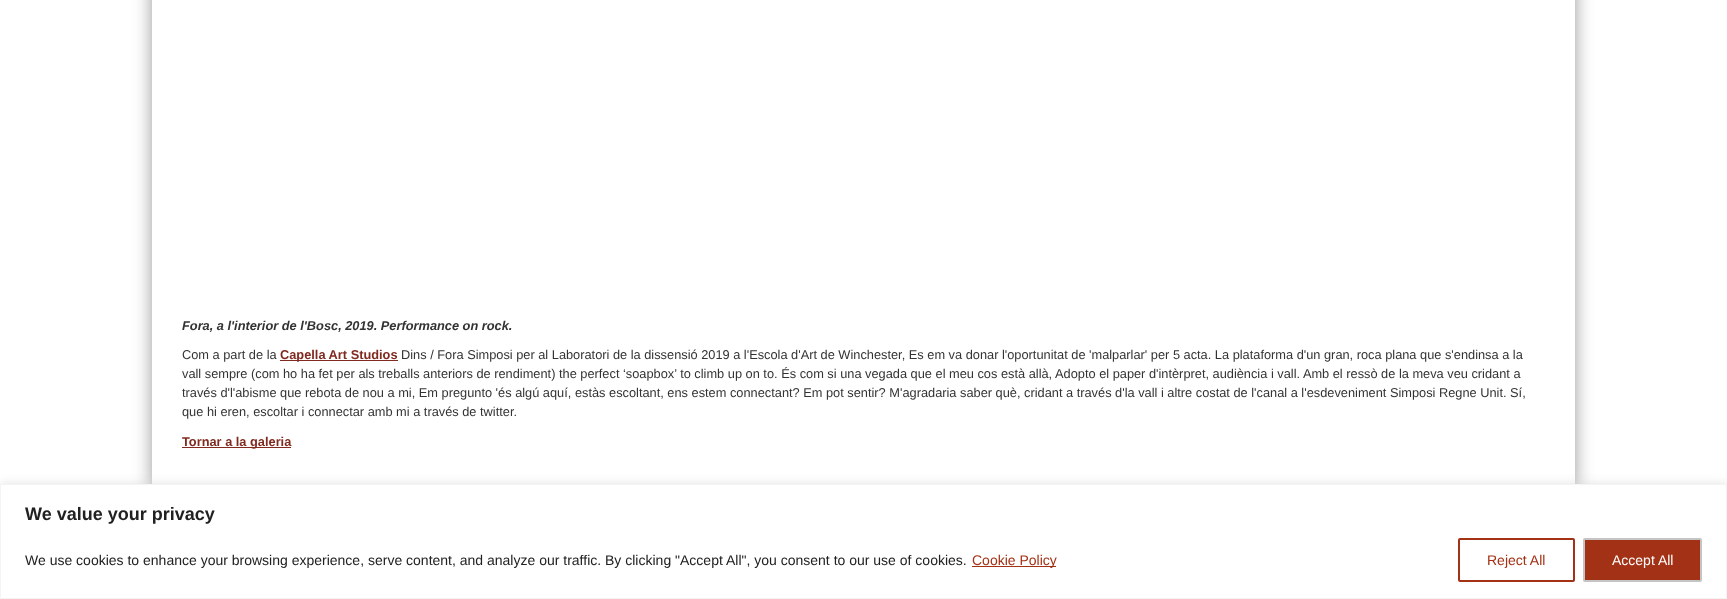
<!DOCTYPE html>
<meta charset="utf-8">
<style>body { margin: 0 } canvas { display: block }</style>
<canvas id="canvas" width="1727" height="599"></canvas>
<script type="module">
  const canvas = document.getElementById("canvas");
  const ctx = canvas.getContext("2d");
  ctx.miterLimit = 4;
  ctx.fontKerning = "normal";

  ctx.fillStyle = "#ffffff";
  ctx.fillRect(0, 0, 1727, 599);
  ctx.save();
  ctx.beginPath();
  ctx.moveTo(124, 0);
  ctx.lineTo(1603, 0);
  ctx.lineTo(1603, 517);
  ctx.lineTo(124, 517);
  ctx.closePath();
  ctx.moveTo(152, -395);
  ctx.lineTo(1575, -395);
  ctx.lineTo(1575, 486);
  ctx.lineTo(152, 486);
  ctx.closePath();
  ctx.clip("evenodd");
  ctx.fillStyle = "rgba(50, 50, 50, 0.51)";
  ctx.filter = "blur(9px)";
  ctx.beginPath();
  ctx.rect(152, -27, 1423, 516);
  ctx.fill();
  ctx.filter = "none";
  ctx.restore();
  ctx.font = "italic bold 12.8px Liberation Sans";
  ctx.fillStyle = "#333333";
  ctx.fillText("Fora, a l'interior de l'Bosc, 2019. Performance on rock.", 182, 330);
  ctx.font = "12.8px Liberation Sans";
  ctx.fillText("Com a part de la", 182, 359);
  ctx.fillStyle = "#812a20";
  ctx.fillRect(280, 360, 118, 1);
  ctx.font = "bold 12.8px Liberation Sans";
  ctx.fillText("Capella Art Studios", 280, 359);
  ctx.font = "12.8px Liberation Sans";
  ctx.fillStyle = "#333333";
  ctx.fillText("Dins / Fora Simposi per al Laboratori de la dissensió 2019 a l'Escola d'Art de Winchester, Es em va donar l'oportunitat de 'malparlar' per 5 acta. La plataforma d'un gran, roca plana que s'endinsa a la", 401, 359);
  ctx.fillText("vall sempre (com ho ha fet per als treballs anteriors de rendiment) the perfect ‘soapbox’ to climb up on to. És com si una vegada que el meu cos està allà, Adopto el paper d'intèrpret, audiència i vall. Amb el ressò de la meva veu cridant a", 182, 378);
  ctx.fillText("través d'l'abisme que rebota de nou a mi, Em pregunto 'és algú aquí, estàs escoltant, ens estem connectant? Em pot sentir? M'agradaria saber què, cridant a través d'la vall i altre costat de l'canal a l'esdeveniment Simposi Regne Unit. Sí,", 182, 397);
  ctx.fillText("que hi eren, escoltar i connectar amb mi a través de twitter.", 182, 416);
  ctx.fillStyle = "#812a20";
  ctx.fillRect(182, 447, 109, 1);
  ctx.font = "bold 12.8px Liberation Sans";
  ctx.fillText("Tornar a la galeria", 182, 446);
  ctx.fillStyle = "rgba(172, 171, 171, 0.3)";
  ctx.filter = "blur(5px)";
  ctx.beginPath();
  ctx.rect(0, 483, 1727, 115);
  ctx.fill();
  ctx.filter = "none";
  ctx.fillStyle = "#ffffff";
  ctx.beginPath();
  ctx.rect(0.5, 484.5, 1726, 114);
  ctx.fill();
  ctx.strokeStyle = "#f4f4f4";
  ctx.stroke();
  ctx.font = "bold 18px Liberation Sans";
  ctx.fillStyle = "#212121";
  ctx.fillText("We value your privacy", 25, 520);
  ctx.font = "14px Liberation Sans";
  ctx.fillText("We use cookies to enhance your browsing experience, serve content, and analyze our traffic. By clicking \"Accept All\", you consent to our use of cookies.", 25, 565);
  ctx.fillStyle = "#a33115";
  ctx.fillRect(972, 566, 84, 1);
  ctx.fillText("Cookie Policy", 972, 565);
  ctx.beginPath();
  ctx.roundRect(1459, 539, 115, 42, 1);
  ctx.strokeStyle = "#a33115";
  ctx.lineWidth = 2;
  ctx.stroke();
  ctx.fillText("Reject All", 1487, 565);
  ctx.beginPath();
  ctx.roundRect(1584, 539, 117, 42, 1);
  ctx.fill();
  ctx.strokeStyle = "#c4c4c4";
  ctx.stroke();
  ctx.fillStyle = "#ffffff";
  ctx.fillText("Accept All", 1612, 565);
</script>
